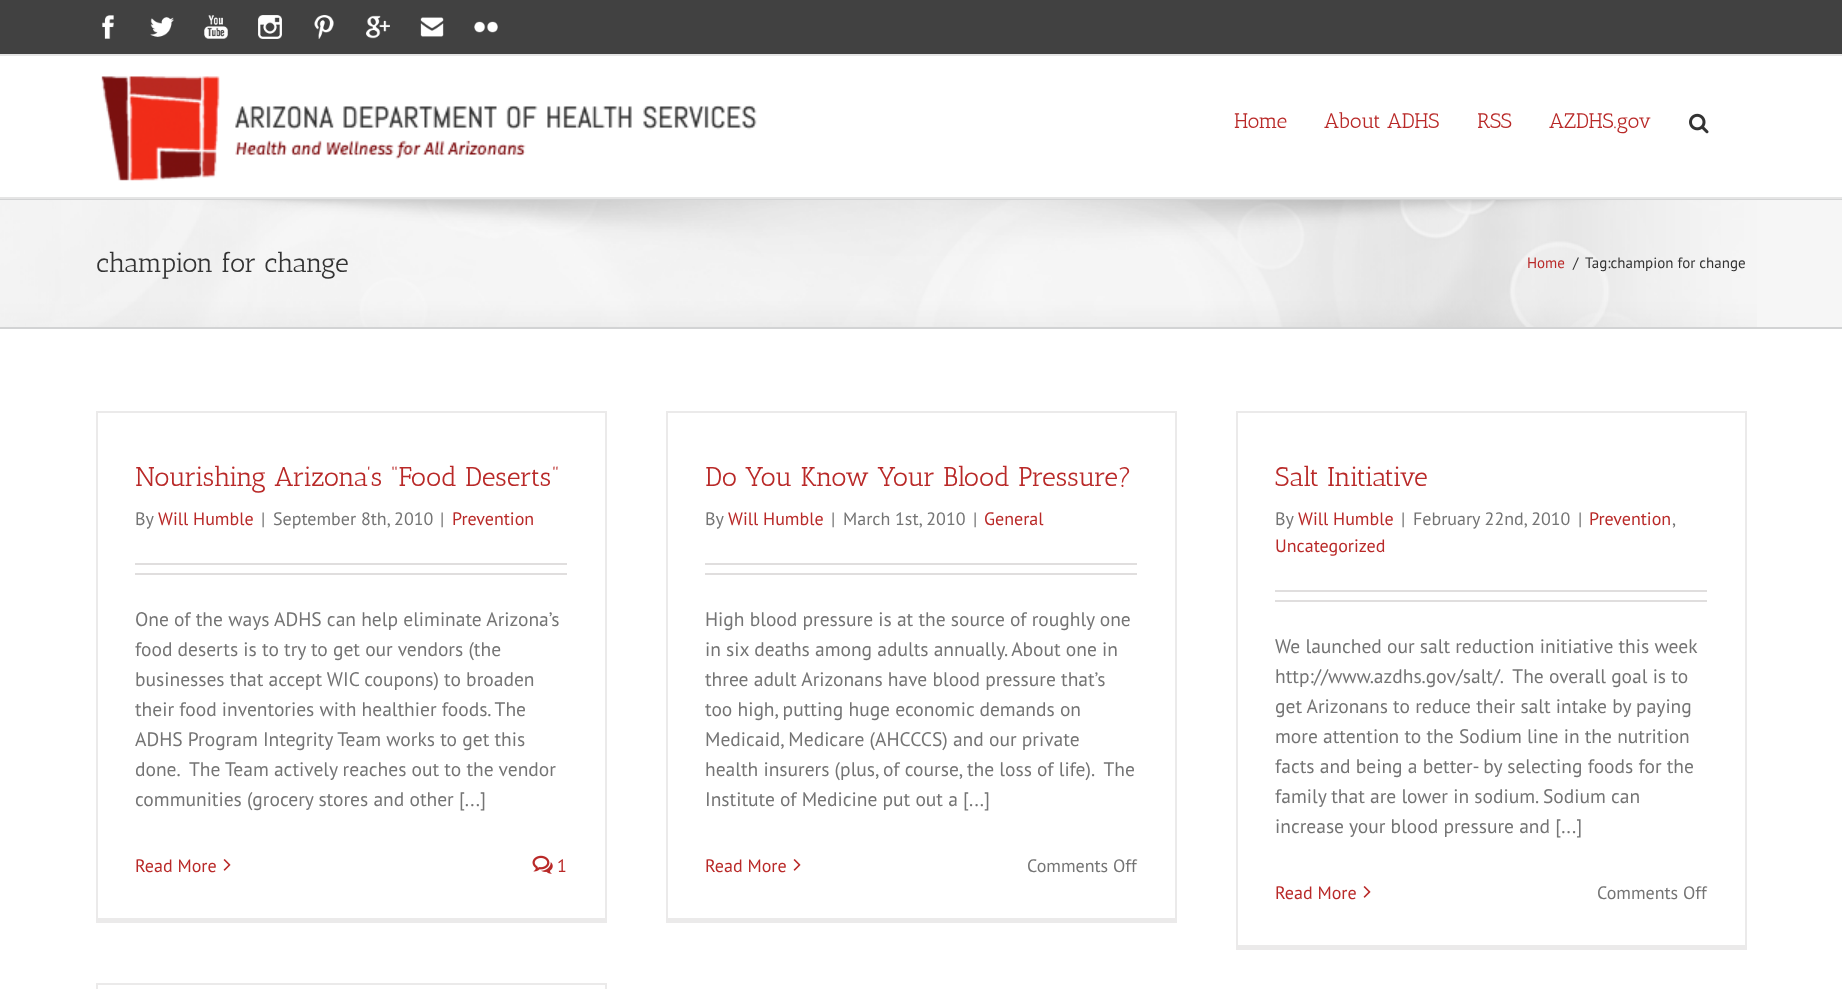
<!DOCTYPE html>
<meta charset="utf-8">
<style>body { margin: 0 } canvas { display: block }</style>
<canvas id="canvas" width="1842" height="989"></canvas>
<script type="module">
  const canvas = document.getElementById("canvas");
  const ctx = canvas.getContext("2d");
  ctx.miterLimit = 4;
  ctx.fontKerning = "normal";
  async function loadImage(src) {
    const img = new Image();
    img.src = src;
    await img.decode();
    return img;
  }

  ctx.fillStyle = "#ffffff";
  ctx.fillRect(0, 0, 1842, 989);
  ctx.fillStyle = "#414141";
  ctx.fillRect(0, 0, 1842, 54);
  ctx.fillStyle = "#e5e5e5";
  ctx.fillRect(0, 54, 1842, 2);
  ctx.drawImage(await loadImage("img1.png"), 102, 15, 12, 24);
  ctx.drawImage(await loadImage("img2.png"), 150, 17, 24, 20);
  ctx.drawImage(await loadImage("img3.png"), 204, 15, 24, 24);
  ctx.drawImage(await loadImage("img4.png"), 258, 15, 24, 24);
  ctx.drawImage(await loadImage("img5.png"), 314, 15, 20, 24);
  ctx.drawImage(await loadImage("img6.png"), 366, 15, 24, 24);
  ctx.drawImage(await loadImage("img7.png"), 420, 17, 24, 20);
  ctx.drawImage(await loadImage("img8.png"), 474, 21, 24, 12);
  ctx.fillRect(0, 197, 1842, 2);
  ctx.drawImage(await loadImage("img9.png"), 101, 76, 656, 105);
  ctx.font = "21px Antic Slab";
  ctx.fillStyle = "#b92928";
  ctx.fillText("Home", 1234, 128);
  ctx.fillText("About ADHS", 1324, 128);
  ctx.fillText("RSS", 1477, 128);
  ctx.fillText("AZDHS.gov", 1549, 128);
  ctx.drawImage(await loadImage("img10.png"), 1689, 113, 20, 21);
  ctx.fillStyle = "#f6f6f6";
  ctx.fillRect(0, 200, 1842, 127);
  ctx.drawImage(await loadImage("img11.png"), 0, 200, 1757, 127);
  ctx.fillStyle = "#d2d3d4";
  ctx.fillRect(0, 199, 1842, 1);
  ctx.fillRect(0, 327, 1842, 2);
  ctx.font = "27px Antic Slab";
  ctx.fillStyle = "#333333";
  ctx.fillText("champion for change", 96, 272);
  ctx.font = "15px PT Sans";
  ctx.fillStyle = "#b92928";
  ctx.fillText("Home", 1527, 268);
  ctx.fillStyle = "#333333";
  ctx.fillText("/", 1573, 268);
  ctx.fillText("Tag:champion for change", 1585, 268);
  ctx.fillStyle = "#ebeaea";
  ctx.fillRect(96, 411, 510, 2);
  ctx.fillRect(605, 411, 2, 512);
  ctx.fillRect(96, 918, 510, 5);
  ctx.fillRect(96, 411, 2, 512);
  ctx.font = "27px Antic Slab";
  ctx.fillStyle = "#b92928";
  ctx.fillText("Nourishing Arizona’s “Food Deserts”", 135, 486);
  ctx.font = "18px PT Sans";
  ctx.fillStyle = "#747474";
  ctx.fillText("By", 135, 525);
  ctx.fillStyle = "#b92928";
  ctx.fillText("Will Humble", 158, 525);
  ctx.fillStyle = "#747474";
  ctx.fillText("|", 261, 525);
  ctx.fillText("September 8th, 2010", 273, 525);
  ctx.fillText("|", 440, 525);
  ctx.fillStyle = "#b92928";
  ctx.fillText("Prevention", 452, 525);
  ctx.fillStyle = "#e0dede";
  ctx.fillRect(135, 563, 432, 2);
  ctx.fillRect(135, 573, 432, 2);
  ctx.font = "19.5px PT Sans";
  ctx.fillStyle = "#747474";
  ctx.fillText("One of the ways ADHS can help eliminate Arizona’s", 135, 626);
  ctx.fillText("food deserts is to try to get our vendors (the", 135, 656);
  ctx.fillText("businesses that accept WIC coupons) to broaden", 135, 686);
  ctx.fillText("their food inventories with healthier foods. The", 135, 716);
  ctx.fillText("ADHS Program Integrity Team works to get this", 135, 746);
  ctx.fillText("done.  The Team actively reaches out to the vendor", 135, 776);
  ctx.fillText("communities (grocery stores and other [...]", 135, 806);
  ctx.font = "18px PT Sans";
  ctx.fillStyle = "#b92928";
  ctx.fillText("Read More", 135, 872);
  ctx.drawImage(await loadImage("img12.png"), 223, 859, 8, 12);
  ctx.drawImage(await loadImage("img13.png"), 532, 855, 21, 19);
  ctx.fillText("1", 557, 872);
  ctx.fillStyle = "#ebeaea";
  ctx.fillRect(666, 411, 510, 2);
  ctx.fillRect(1175, 411, 2, 512);
  ctx.fillRect(666, 918, 510, 5);
  ctx.fillRect(666, 411, 2, 512);
  ctx.font = "27px Antic Slab";
  ctx.fillStyle = "#b92928";
  ctx.fillText("Do You Know Your Blood Pressure?", 705, 486);
  ctx.font = "18px PT Sans";
  ctx.fillStyle = "#747474";
  ctx.fillText("By", 705, 525);
  ctx.fillStyle = "#b92928";
  ctx.fillText("Will Humble", 728, 525);
  ctx.fillStyle = "#747474";
  ctx.fillText("|", 831, 525);
  ctx.fillText("March 1st, 2010", 843, 525);
  ctx.fillText("|", 973, 525);
  ctx.fillStyle = "#b92928";
  ctx.fillText("General", 984, 525);
  ctx.fillStyle = "#e0dede";
  ctx.fillRect(705, 563, 432, 2);
  ctx.fillRect(705, 573, 432, 2);
  ctx.font = "19.5px PT Sans";
  ctx.fillStyle = "#747474";
  ctx.fillText("High blood pressure is at the source of roughly one", 705, 626);
  ctx.fillText("in six deaths among adults annually. About one in", 705, 656);
  ctx.fillText("three adult Arizonans have blood pressure that’s", 705, 686);
  ctx.fillText("too high, putting huge economic demands on", 705, 716);
  ctx.fillText("Medicaid, Medicare (AHCCCS) and our private", 705, 746);
  ctx.fillText("health insurers (plus, of course, the loss of life).  The", 705, 776);
  ctx.fillText("Institute of Medicine put out a [...]", 705, 806);
  ctx.font = "18px PT Sans";
  ctx.fillStyle = "#b92928";
  ctx.fillText("Read More", 705, 872);
  ctx.drawImage(await loadImage("img12.png"), 793, 859, 8, 12);
  ctx.fillStyle = "#747474";
  ctx.fillText("Comments Off", 1027, 872);
  ctx.fillStyle = "#ebeaea";
  ctx.fillRect(1236, 411, 510, 2);
  ctx.fillRect(1745, 411, 2, 539);
  ctx.fillRect(1236, 945, 510, 5);
  ctx.fillRect(1236, 411, 2, 539);
  ctx.font = "27px Antic Slab";
  ctx.fillStyle = "#b92928";
  ctx.fillText("Salt Initiative", 1275, 486);
  ctx.font = "18px PT Sans";
  ctx.fillStyle = "#747474";
  ctx.fillText("By", 1275, 525);
  ctx.fillStyle = "#b92928";
  ctx.fillText("Will Humble", 1298, 525);
  ctx.fillStyle = "#747474";
  ctx.fillText("|", 1401, 525);
  ctx.fillText("February 22nd, 2010", 1413, 525);
  ctx.fillText("|", 1578, 525);
  ctx.fillStyle = "#b92928";
  ctx.fillText("Prevention", 1589, 525);
  ctx.fillStyle = "#747474";
  ctx.fillText(",", 1672, 525);
  ctx.fillStyle = "#b92928";
  ctx.fillText("Uncategorized", 1275, 552);
  ctx.fillStyle = "#e0dede";
  ctx.fillRect(1275, 590, 432, 2);
  ctx.fillRect(1275, 600, 432, 2);
  ctx.font = "19.5px PT Sans";
  ctx.fillStyle = "#747474";
  ctx.fillText("We launched our salt reduction initiative this week", 1275, 653);
  ctx.fillText("http://www.azdhs.gov/salt/.  The overall goal is to", 1275, 683);
  ctx.fillText("get Arizonans to reduce their salt intake by paying", 1275, 713);
  ctx.fillText("more attention to the Sodium line in the nutrition", 1275, 743);
  ctx.fillText("facts and being a better- by selecting foods for the", 1275, 773);
  ctx.fillText("family that are lower in sodium. Sodium can", 1275, 803);
  ctx.fillText("increase your blood pressure and [...]", 1275, 833);
  ctx.font = "18px PT Sans";
  ctx.fillStyle = "#b92928";
  ctx.fillText("Read More", 1275, 899);
  ctx.drawImage(await loadImage("img12.png"), 1363, 886, 8, 12);
  ctx.fillStyle = "#747474";
  ctx.fillText("Comments Off", 1597, 899);
  ctx.fillStyle = "#ebeaea";
  ctx.fillRect(96, 983, 510, 2);
  ctx.fillRect(605, 983, 2, 6);
  ctx.fillRect(96, 983, 2, 6);
</script>
